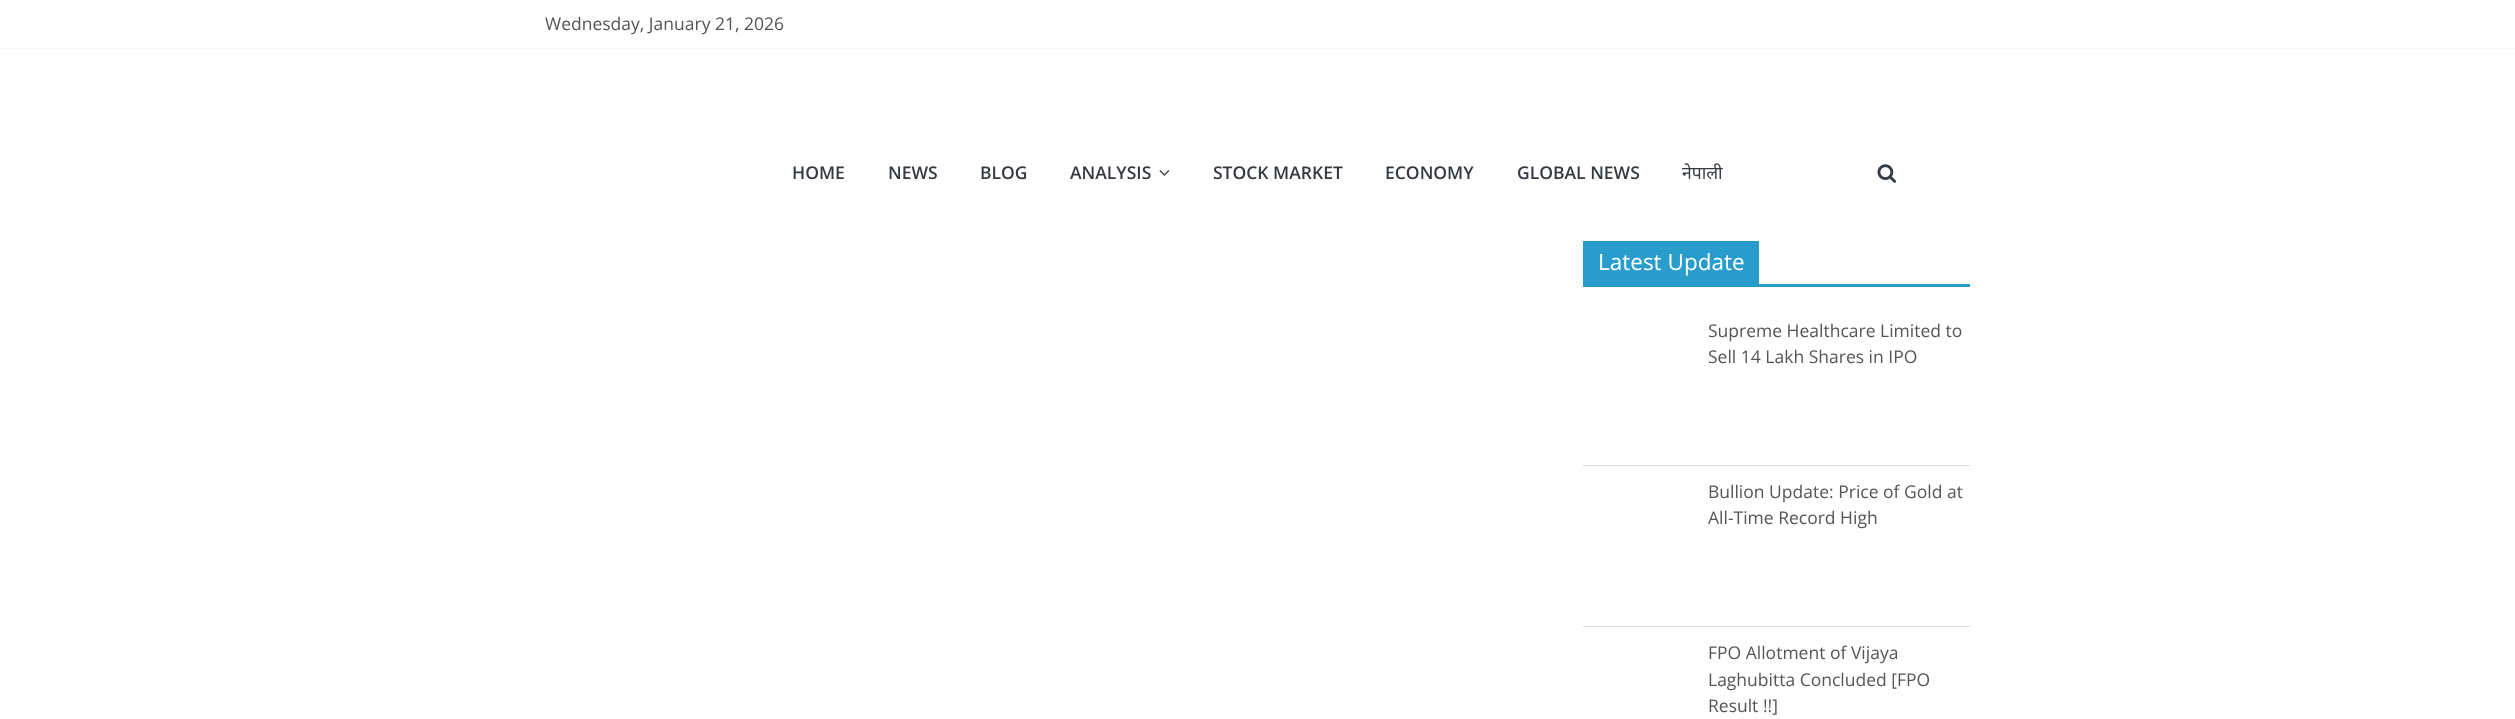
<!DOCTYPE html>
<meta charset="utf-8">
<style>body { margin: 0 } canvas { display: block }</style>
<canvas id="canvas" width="2515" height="719"></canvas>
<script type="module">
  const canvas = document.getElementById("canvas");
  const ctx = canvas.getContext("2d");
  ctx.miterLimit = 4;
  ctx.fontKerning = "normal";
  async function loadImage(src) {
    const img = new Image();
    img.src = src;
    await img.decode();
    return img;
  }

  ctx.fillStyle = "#ffffff";
  ctx.fillRect(0, 0, 2515, 719);
  ctx.fillStyle = "rgba(0, 0, 0, 0.1)";
  ctx.filter = "blur(1px)";
  ctx.beginPath();
  ctx.rect(0, 0, 2515, 48);
  ctx.fill();
  ctx.filter = "none";
  ctx.fillStyle = "#ffffff";
  ctx.fillRect(0, 0, 2515, 48);
  ctx.font = "17.5px Open Sans";
  ctx.fillStyle = "#555555";
  ctx.fillText("Wednesday, January 21, 2026", 545, 30);
  ctx.font = "600 17.5px Open Sans";
  ctx.fillStyle = "#343a40";
  ctx.fillText("HOME", 792, 179);
  ctx.fillText("NEWS", 888, 179);
  ctx.fillText("BLOG", 980, 179);
  ctx.fillText("ANALYSIS", 1070, 179);
  ctx.drawImage(await loadImage("img1.png"), 1159, 170, 11, 6);
  ctx.fillText("STOCK MARKET", 1213, 179);
  ctx.fillText("ECONOMY", 1385, 179);
  ctx.fillText("GLOBAL NEWS", 1517, 179);
  ctx.font = "17.5px Noto Sans";
  ctx.fillText("नेपाली", 1682, 179);
  ctx.drawImage(await loadImage("img2.png"), 1877, 164, 20, 19);
  ctx.fillStyle = "#289dcc";
  ctx.fillRect(1583, 284, 387, 3);
  ctx.fillRect(1583, 241, 176, 43);
  ctx.font = "22.5px Open Sans";
  ctx.fillStyle = "#ffffff";
  ctx.fillText("Latest Update", 1598, 270);
  ctx.fillStyle = "#dddddd";
  ctx.fillRect(1583, 465, 387, 1);
  ctx.font = "17.5px Open Sans";
  ctx.fillStyle = "#555555";
  ctx.fillText("Supreme Healthcare Limited to", 1708, 337);
  ctx.fillText("Sell 14 Lakh Shares in IPO", 1708, 363);
  ctx.fillStyle = "#dddddd";
  ctx.fillRect(1583, 626, 387, 1);
  ctx.fillStyle = "#555555";
  ctx.fillText("Bullion Update: Price of Gold at", 1708, 498);
  ctx.fillText("All-Time Record High", 1708, 524);
  ctx.fillText("FPO Allotment of Vijaya", 1708, 659);
  ctx.fillText("Laghubitta Concluded [FPO", 1708, 686);
  ctx.fillText("Result !!]", 1708, 712);
</script>
